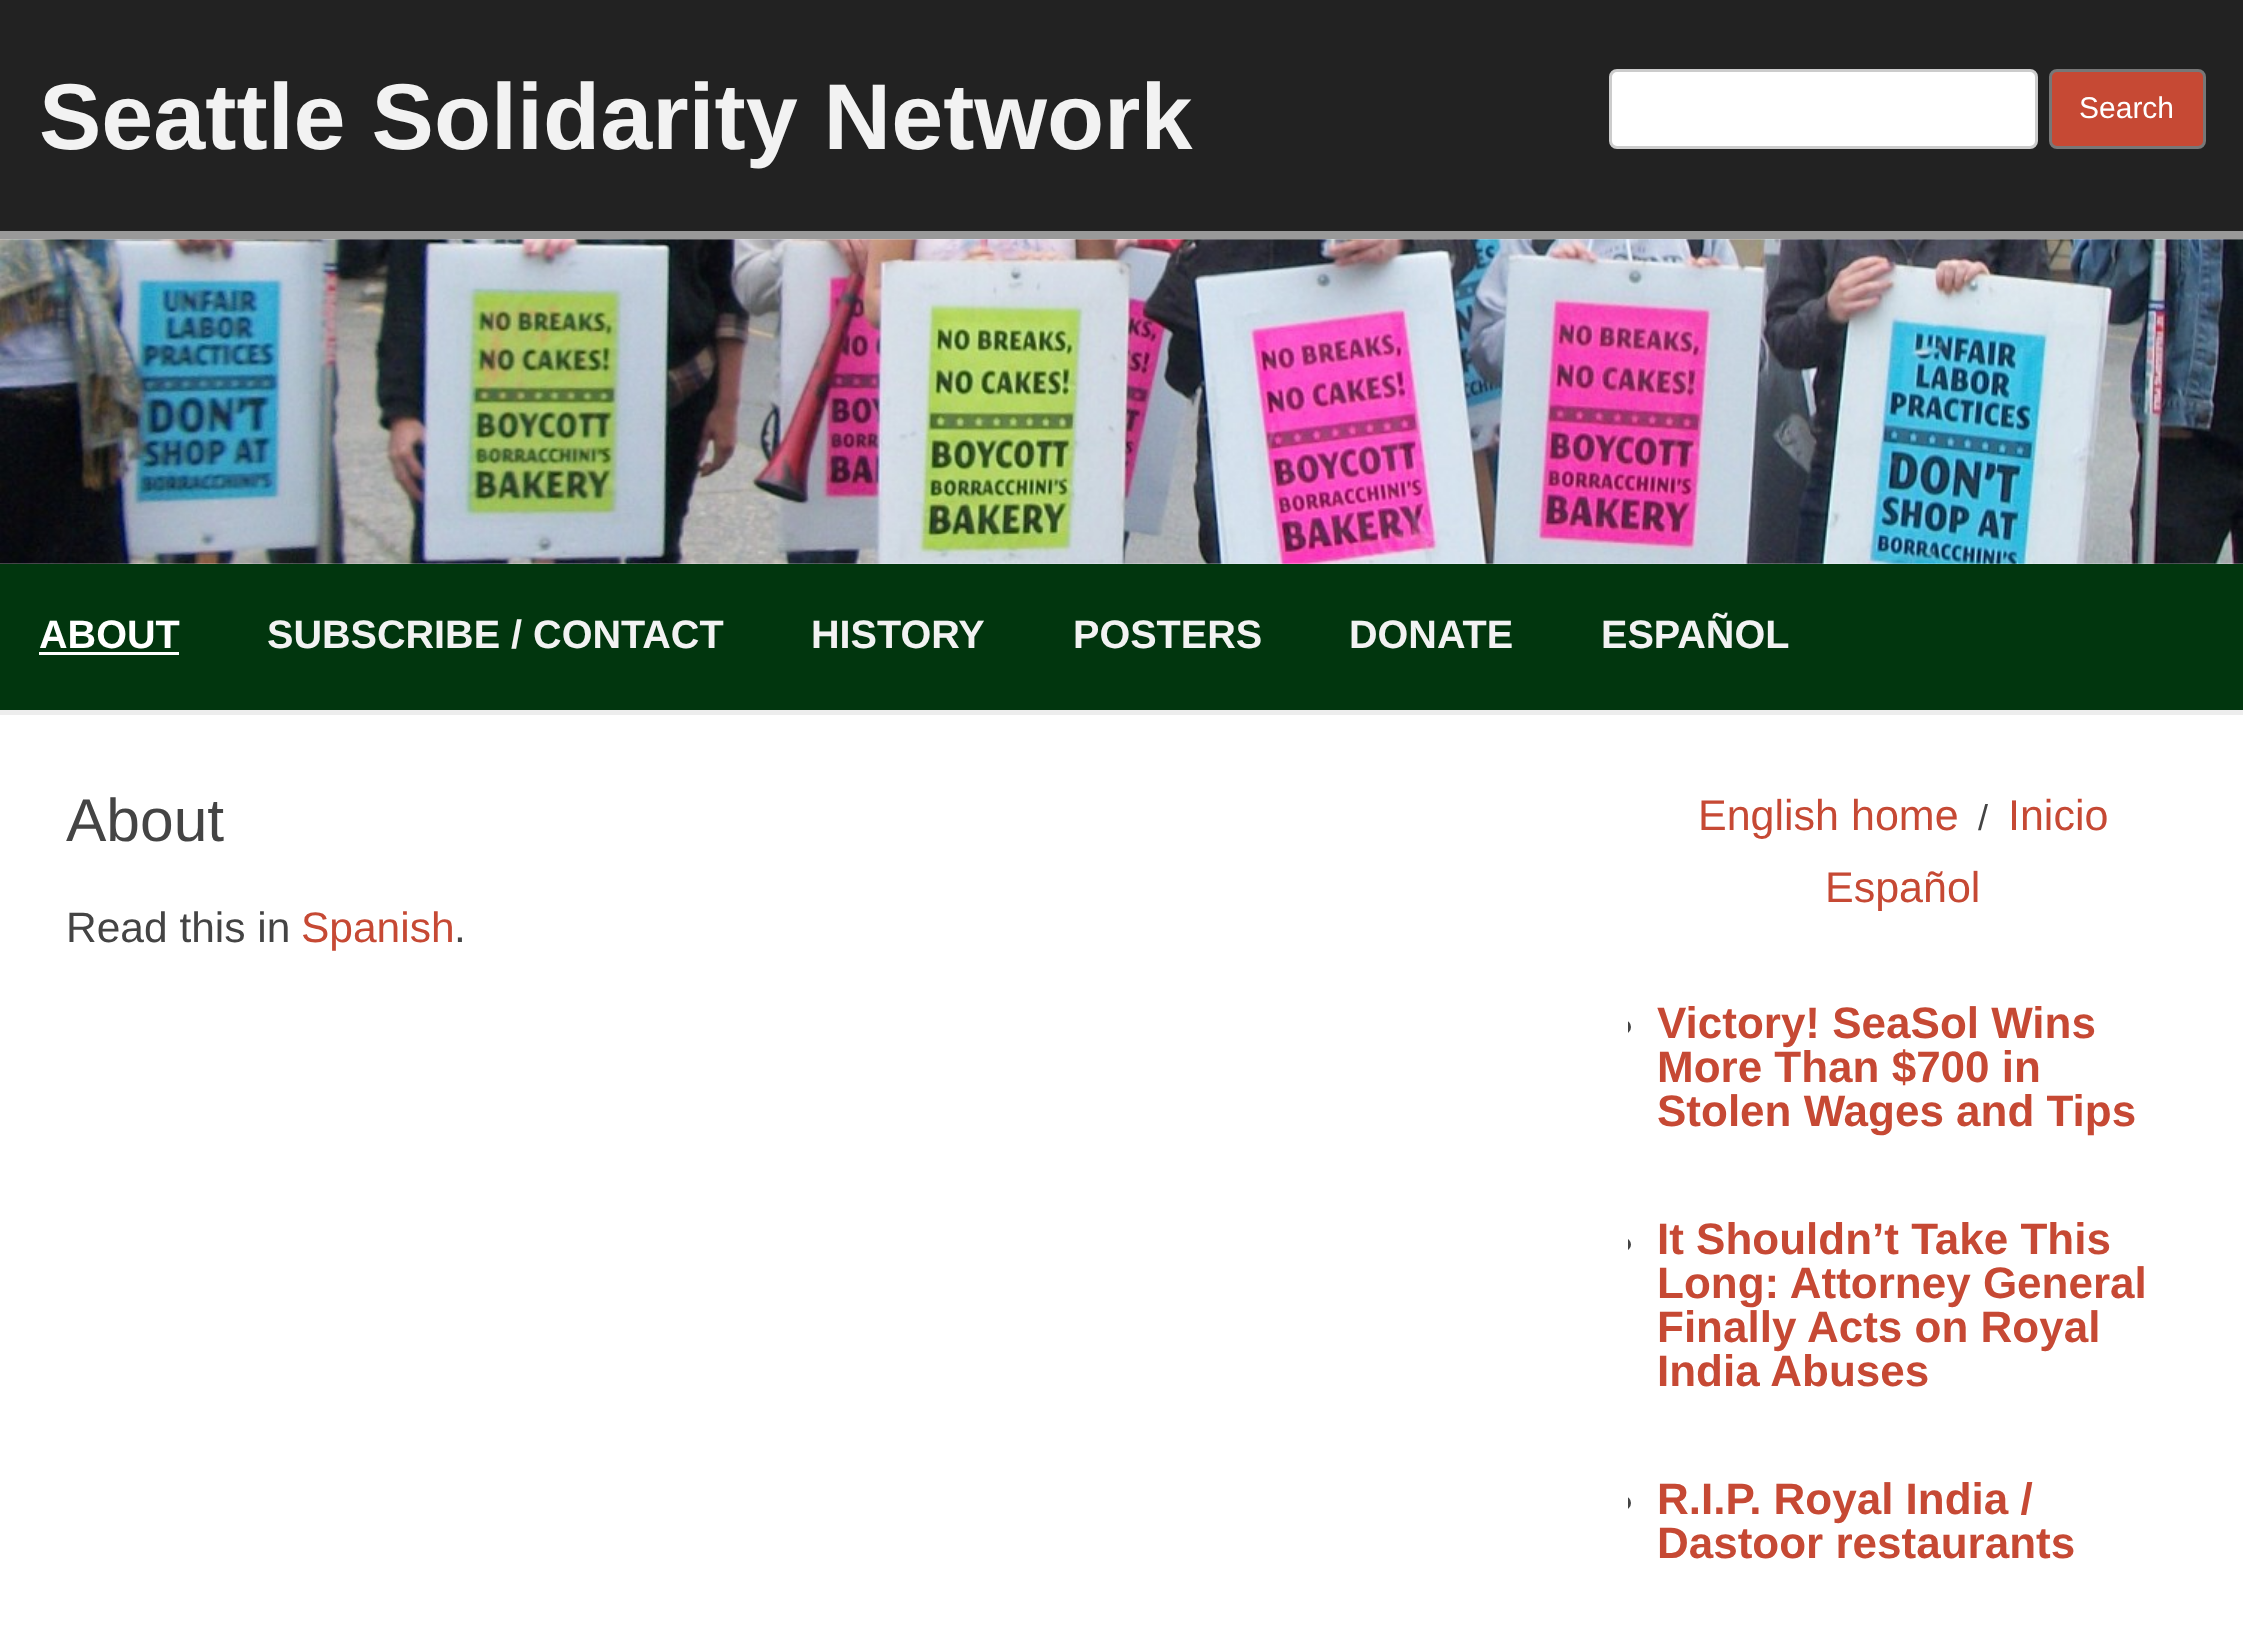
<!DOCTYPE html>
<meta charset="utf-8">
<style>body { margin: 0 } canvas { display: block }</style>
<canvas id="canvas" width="2243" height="1632"></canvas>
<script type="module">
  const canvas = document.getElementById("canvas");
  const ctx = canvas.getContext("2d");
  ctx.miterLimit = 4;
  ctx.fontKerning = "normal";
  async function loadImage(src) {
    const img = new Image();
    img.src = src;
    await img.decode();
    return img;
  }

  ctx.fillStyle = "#ffffff";
  ctx.fillRect(0, 0, 2243, 1632);
  ctx.fillStyle = "#222222";
  ctx.fillRect(0, 0, 2243, 231);
  ctx.fillStyle = "#999999";
  ctx.fillRect(0, 231, 2243, 8);
  ctx.font = "bold 93.5px Liberation Sans";
  ctx.fillStyle = "#f2f2f2";
  ctx.fillText("Seattle Solidarity Network", 39, 149);
  ctx.fillStyle = "#ffffff";
  ctx.beginPath();
  ctx.roundRect(1610.5, 70.5, 426, 77, 6.5);
  ctx.fill();
  ctx.strokeStyle = "#cccccc";
  ctx.lineWidth = 3;
  ctx.stroke();
  ctx.fillStyle = "#c64934";
  ctx.beginPath();
  ctx.roundRect(2050.5, 70.5, 154, 77, 6.5);
  ctx.fill();
  ctx.strokeStyle = "#777777";
  ctx.stroke();
  ctx.font = "30px Liberation Sans";
  ctx.fillStyle = "#ffffff";
  ctx.fillText("Search", 2079, 118);
  ctx.drawImage(await loadImage("img1.png"), 0, 239, 2243, 325);
  ctx.fillStyle = "#01360e";
  ctx.fillRect(0, 564, 2243, 146);
  ctx.fillStyle = "#ededed";
  ctx.fillRect(0, 710, 2243, 5);
  ctx.font = "bold 39.6px Liberation Sans";
  ctx.fillStyle = "#ffffff";
  ctx.fillText("ABOUT", 39, 648);
  ctx.fillRect(39, 652, 140, 3);
  ctx.fillStyle = "#f2f2f2";
  ctx.fillText("SUBSCRIBE / CONTACT", 267, 648);
  ctx.fillText("HISTORY", 811, 648);
  ctx.fillText("POSTERS", 1073, 648);
  ctx.fillText("DONATE", 1349, 648);
  ctx.fillText("ESPAÑOL", 1601, 648);
  ctx.font = "60.5px Liberation Sans";
  ctx.fillStyle = "#444444";
  ctx.fillText("About", 66, 841);
  ctx.font = "42.5px Liberation Sans";
  ctx.fillText("Read this in", 66, 942);
  ctx.fillStyle = "#c64934";
  ctx.fillText("Spanish", 301, 942);
  ctx.fillStyle = "#444444";
  ctx.fillText(".", 454, 942);
  ctx.font = "43px Liberation Sans";
  ctx.fillStyle = "#c64934";
  ctx.fillText("English home", 1698, 830);
  ctx.font = "36px Liberation Sans";
  ctx.fillStyle = "#444444";
  ctx.fillText("/", 1978, 830);
  ctx.font = "43px Liberation Sans";
  ctx.fillStyle = "#c64934";
  ctx.fillText("Inicio", 2008, 830);
  ctx.fillText("Español", 1825, 902);
  ctx.save();
  ctx.beginPath();
  ctx.rect(1628, 781, 550, 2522);
  ctx.clip();
  ctx.beginPath();
  ctx.arc(1624, 1027, 5.5, 0, Math.PI * 2);
  ctx.strokeStyle = "#444444";
  ctx.stroke();
  ctx.restore();
  ctx.font = "bold 44px Liberation Sans";
  ctx.fillText("Victory! SeaSol Wins", 1657, 1038);
  ctx.fillText("More Than $700 in", 1657, 1082);
  ctx.fillText("Stolen Wages and Tips", 1657, 1126);
  ctx.save();
  ctx.beginPath();
  ctx.rect(1628, 781, 550, 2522);
  ctx.clip();
  ctx.beginPath();
  ctx.roundRect(1618.5, 1239.5, 11, 10, 5);
  ctx.strokeStyle = "#444444";
  ctx.stroke();
  ctx.restore();
  ctx.fillText("It Shouldn’t Take This", 1657, 1254);
  ctx.fillText("Long: Attorney General", 1657, 1298);
  ctx.fillText("Finally Acts on Royal", 1657, 1342);
  ctx.fillText("India Abuses", 1657, 1386);
  ctx.save();
  ctx.beginPath();
  ctx.rect(1628, 781, 550, 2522);
  ctx.clip();
  ctx.beginPath();
  ctx.arc(1624, 1503, 5.5, 0, Math.PI * 2);
  ctx.strokeStyle = "#444444";
  ctx.stroke();
  ctx.restore();
  ctx.fillText("R.I.P. Royal India /", 1657, 1514);
  ctx.fillText("Dastoor restaurants", 1657, 1558);
</script>
